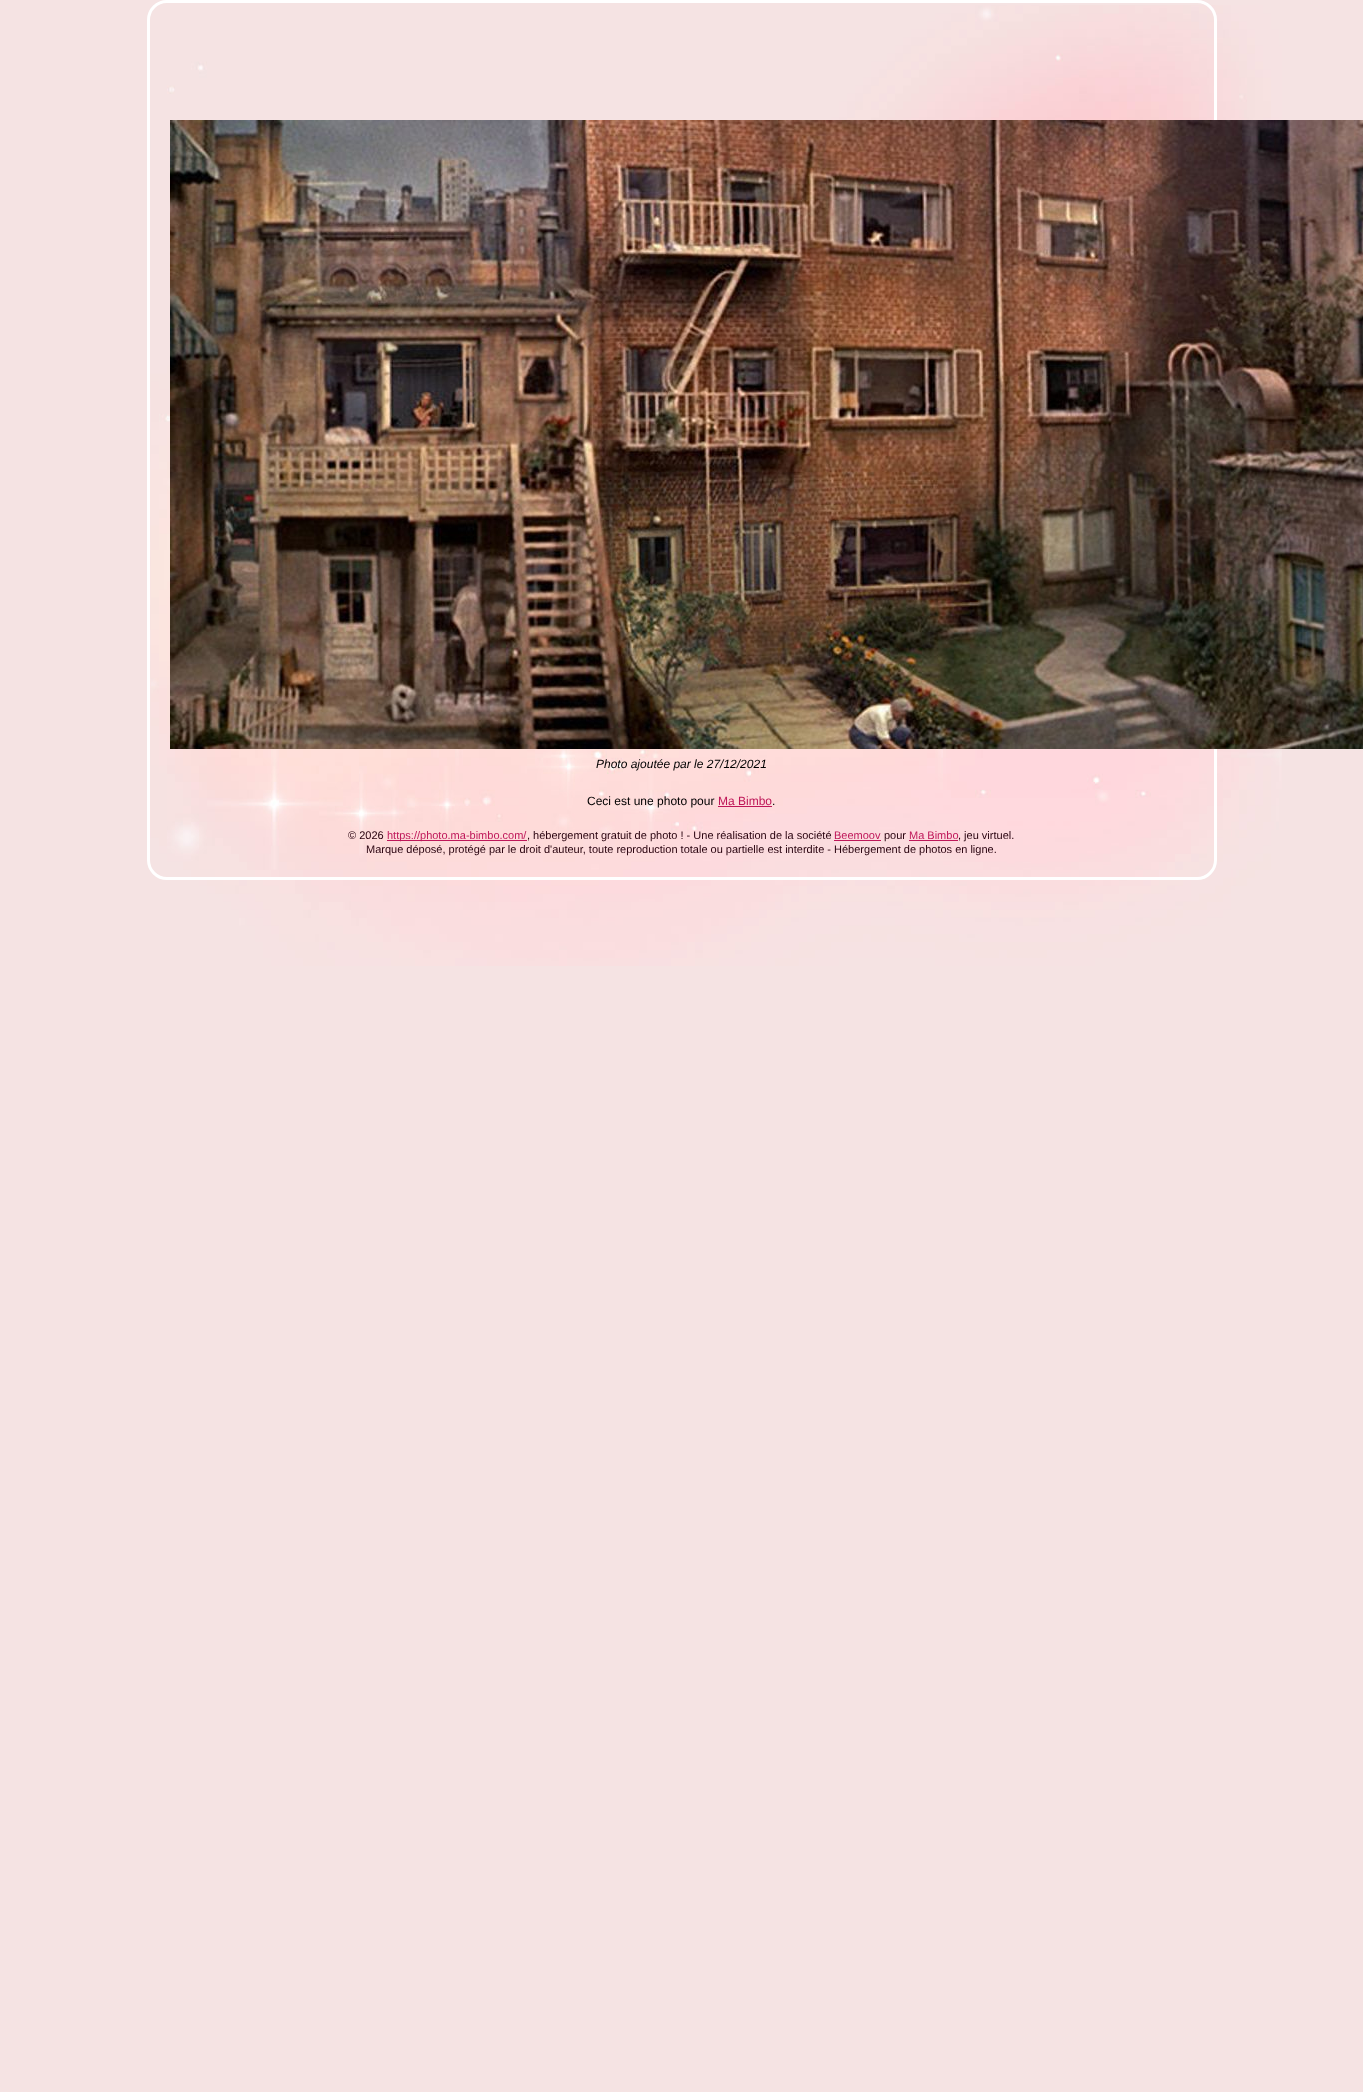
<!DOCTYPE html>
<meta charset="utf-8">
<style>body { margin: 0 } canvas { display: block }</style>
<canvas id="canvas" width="1363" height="2092"></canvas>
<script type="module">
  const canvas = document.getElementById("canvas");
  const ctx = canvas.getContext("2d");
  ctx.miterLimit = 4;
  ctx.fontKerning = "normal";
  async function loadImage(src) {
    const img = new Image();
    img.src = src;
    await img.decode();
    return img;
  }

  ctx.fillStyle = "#f5e3e3";
  ctx.fillRect(0, 0, 1363, 2092);
  ctx.drawImage(await loadImage("img1.png"), 148, 5, 1134, 961);
  ctx.beginPath();
  ctx.roundRect(148.5, 1.5, 1067, 877, 18.5);
  ctx.strokeStyle = "#ffffff";
  ctx.lineWidth = 3;
  ctx.stroke();
  ctx.drawImage(await loadImage("img2.png"), 170, 120, 1193, 629);
  ctx.font = "italic 12px Liberation Sans";
  ctx.fillStyle = "#000000";
  ctx.fillText("Photo ajoutée par le 27/12/2021", 596, 768);
  ctx.font = "12px Liberation Sans";
  ctx.fillText("Ceci est une photo pour", 587, 805);
  ctx.fillStyle = "#bf1759";
  ctx.fillText("Ma Bimbo", 718, 805);
  ctx.fillRect(718, 806, 54, 1);
  ctx.fillStyle = "#000000";
  ctx.fillText(".", 772, 805);
  ctx.font = "11px Liberation Sans";
  ctx.fillStyle = "#27000d";
  ctx.fillText("© 2026", 348, 839);
  ctx.fillStyle = "#bf1759";
  ctx.fillRect(387, 840, 140, 1);
  ctx.fillText("https://photo.ma-bimbo.com/", 387, 839);
  ctx.fillStyle = "#27000d";
  ctx.fillText(", hébergement gratuit de photo ! - Une réalisation de la société", 527, 839);
  ctx.fillStyle = "#bf1759";
  ctx.fillText("Beemoov", 834, 839);
  ctx.fillRect(834, 840, 47, 1);
  ctx.fillStyle = "#27000d";
  ctx.fillText("pour", 884, 839);
  ctx.fillStyle = "#bf1759";
  ctx.fillText("Ma Bimbo", 909, 839);
  ctx.fillRect(909, 840, 49, 1);
  ctx.fillStyle = "#27000d";
  ctx.fillText(", jeu virtuel.", 958, 839);
  ctx.fillText("Marque déposé, protégé par le droit d'auteur, toute reproduction totale ou partielle est interdite - Hébergement de photos en ligne.", 366, 853);
</script>
